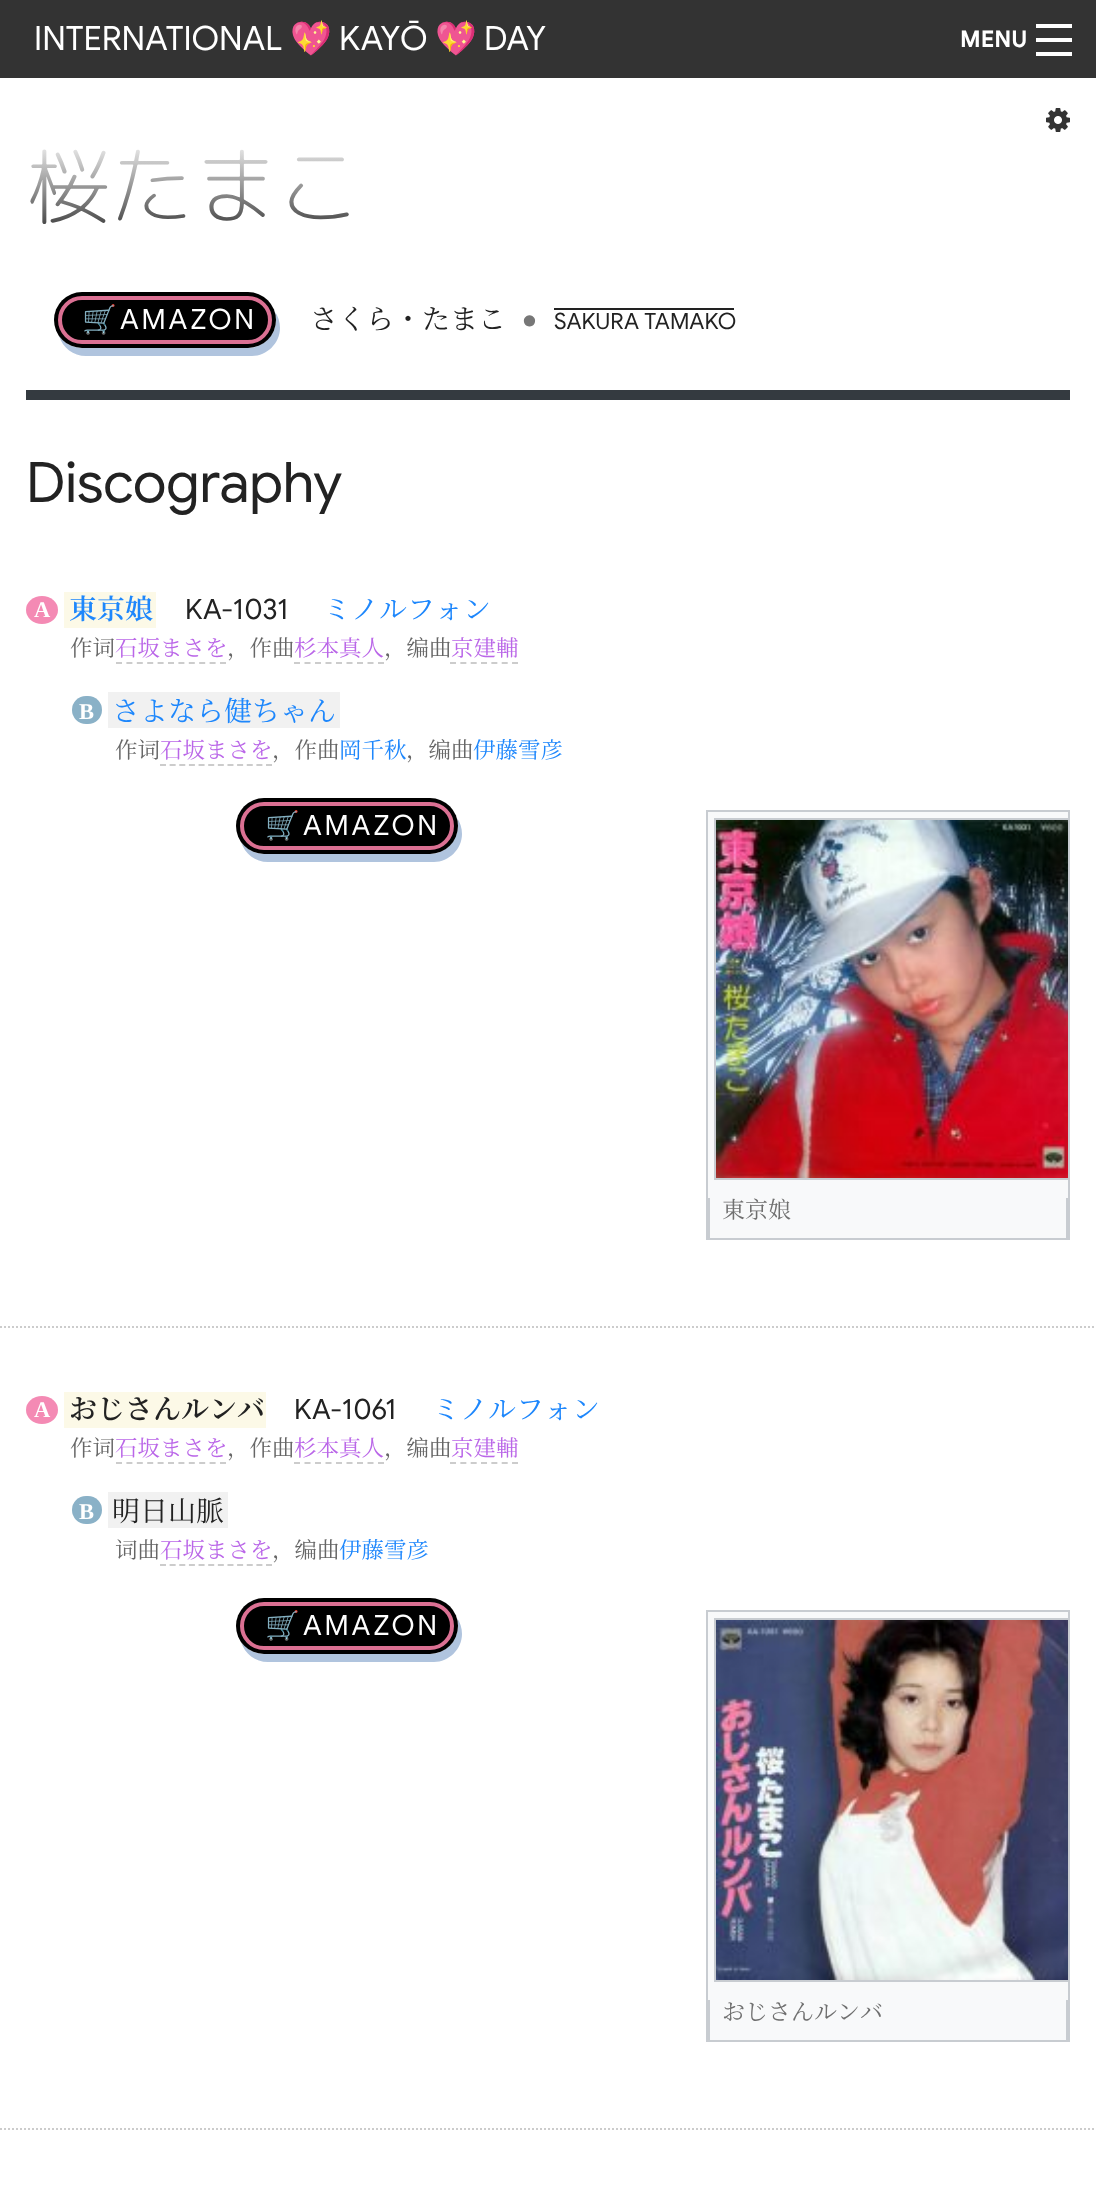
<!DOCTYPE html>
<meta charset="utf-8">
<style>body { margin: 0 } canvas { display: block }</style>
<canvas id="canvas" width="1096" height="2206"></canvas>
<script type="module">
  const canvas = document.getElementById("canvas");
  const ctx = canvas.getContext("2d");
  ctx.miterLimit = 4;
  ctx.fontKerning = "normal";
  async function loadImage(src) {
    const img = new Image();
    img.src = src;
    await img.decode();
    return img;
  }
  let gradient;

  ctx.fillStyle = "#ffffff";
  ctx.fillRect(0, 0, 1096, 2206);
  ctx.fillStyle = "#333333";
  ctx.fillRect(0, 0, 1096, 78);
  ctx.font = "33.5px Google Sans";
  ctx.fillStyle = "#ffffff";
  ctx.fillText("INTERNATIONAL", 34, 50);
  ctx.font = "33.5px Noto Color Emoji";
  ctx.fillText("💖", 290, 50);
  ctx.font = "33.5px Google Sans";
  ctx.fillText("KAYŌ", 339, 50);
  ctx.font = "33.5px Noto Color Emoji";
  ctx.fillText("💖", 435, 50);
  ctx.font = "33.5px Google Sans";
  ctx.fillText("DAY", 484, 50);
  ctx.font = "bold 23px Google Sans";
  ctx.fillText("MENU", 960, 47);
  ctx.fillRect(1036, 52, 36, 4);
  ctx.fillRect(1036, 38, 36, 4);
  ctx.fillRect(1036, 24, 36, 4);
  ctx.drawImage(await loadImage("img1.png"), 1046, 108, 24, 24);
  ctx.font = "300 84px 'Rounded Mplus 1c'";
  gradient = ctx.createLinearGradient(26, 135, 26, 236);
  gradient.addColorStop(0, "#ffffff");
  gradient.addColorStop(1, "#333333");
  ctx.fillStyle = gradient;
  ctx.fillText("桜たまこ", 26, 217);
  ctx.fillStyle = "#b0c4de";
  ctx.beginPath();
  ctx.moveTo(59, 336);
  ctx.bezierCurveTo(63, 348, 73, 356, 86, 356);
  ctx.lineTo(252, 356);
  ctx.bezierCurveTo(267, 356, 280, 343, 280, 328);
  ctx.bezierCurveTo(280, 322, 278, 316, 275, 312);
  ctx.bezierCurveTo(276, 314, 276, 317, 276, 320);
  ctx.bezierCurveTo(276, 335, 263, 348, 248, 348);
  ctx.lineTo(82, 348);
  ctx.bezierCurveTo(73, 348, 64, 343, 59, 336);
  ctx.closePath();
  ctx.fill();
  ctx.fillStyle = "#000000";
  ctx.beginPath();
  ctx.roundRect(54, 292, 222, 56, 28);
  ctx.fill();
  ctx.beginPath();
  ctx.roundRect(60, 298, 210, 44, 22);
  ctx.strokeStyle = "#db7093";
  ctx.lineWidth = 4;
  ctx.stroke();
  ctx.letterSpacing = "2.75px";
  ctx.font = "28px 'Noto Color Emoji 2'";
  ctx.fillStyle = "#ffffff";
  ctx.fillText("🛒", 82, 329);
  ctx.font = "28px Google Sans";
  ctx.fillText("AMAZON", 120, 329);
  ctx.letterSpacing = "0px";
  ctx.font = "28px Noto Serif SC";
  ctx.fillStyle = "#222222";
  ctx.fillText("さくら・たまこ", 310, 329);
  ctx.font = "50px Google Sans";
  ctx.fillStyle = "#777777";
  ctx.fillText("•", 520, 337);
  ctx.font = "22.5px Google Sans";
  ctx.fillStyle = "#222222";
  ctx.fillText("SAKURA TAMAKO", 554, 329);
  ctx.fillRect(554, 308, 180, 2);
  ctx.fillStyle = "#343a40";
  ctx.fillRect(26, 390, 1044, 10);
  ctx.font = "56px Google Sans";
  ctx.fillStyle = "#222222";
  ctx.fillText("Discography", 26, 502);
  ctx.beginPath();
  ctx.moveTo(0, 1327);
  ctx.lineTo(1096, 1327);
  ctx.strokeStyle = "#cccccc";
  ctx.lineWidth = 2;
  ctx.setLineDash([2, 2]);
  ctx.stroke();
  ctx.fillStyle = "#f48ab4";
  ctx.beginPath();
  ctx.ellipse(42, 610, 16, 14, 0, 0, Math.PI * 2);
  ctx.fill();
  ctx.font = "bold 22.5px Liberation Serif";
  ctx.fillStyle = "#ffffff";
  ctx.fillText("A", 34, 617);
  ctx.fillStyle = "#fcf9e7";
  ctx.fillRect(64, 592, 92, 36);
  ctx.font = "600 28px Noto Serif JP";
  ctx.fillStyle = "#1e87fc";
  ctx.fillText("東京娘", 69, 619);
  ctx.font = "28px Google Sans";
  ctx.fillStyle = "#222222";
  ctx.fillText("KA-1031", 185, 619);
  ctx.font = "28px Noto Serif JP";
  ctx.fillStyle = "#1e87fc";
  ctx.fillText("ミノルフォン", 323, 619);
  ctx.font = "22.5px Noto Serif SC";
  ctx.fillStyle = "#666666";
  ctx.fillText("作词", 70, 656);
  ctx.font = "22.5px Noto Serif JP";
  ctx.fillStyle = "#ba66e8";
  ctx.fillText("石坂まさを", 115, 656);
  ctx.beginPath();
  ctx.moveTo(116, 663);
  ctx.lineTo(226, 663);
  ctx.setLineDash([6, 4.4]);
  ctx.stroke();
  ctx.font = "22.5px Noto Serif SC";
  ctx.fillStyle = "#666666";
  ctx.fillText("，作曲", 227, 656);
  ctx.font = "22.5px Noto Serif JP";
  ctx.fillStyle = "#ba66e8";
  ctx.fillText("杉本真人", 294, 656);
  ctx.beginPath();
  ctx.moveTo(294, 663);
  ctx.lineTo(384, 663);
  ctx.setLineDash([6, 4.5]);
  ctx.stroke();
  ctx.font = "22.5px Noto Serif SC";
  ctx.fillStyle = "#666666";
  ctx.fillText("，编曲", 384, 656);
  ctx.font = "22.5px Noto Serif JP";
  ctx.fillStyle = "#ba66e8";
  ctx.fillText("京建輔", 451, 656);
  ctx.beginPath();
  ctx.moveTo(450, 663);
  ctx.lineTo(518, 663);
  ctx.setLineDash([6, 4.34]);
  ctx.stroke();
  ctx.fillStyle = "#8ab1c7";
  ctx.beginPath();
  ctx.roundRect(72, 696, 30, 28, 14);
  ctx.fill();
  ctx.font = "bold 22.5px Liberation Serif";
  ctx.fillStyle = "#ffffff";
  ctx.fillText("B", 79, 719);
  ctx.fillStyle = "#f1f1f1";
  ctx.fillRect(108, 692, 232, 36);
  ctx.font = "28px Noto Serif JP";
  ctx.fillStyle = "#1e87fc";
  ctx.fillText("さよなら健ちゃん", 112, 721);
  ctx.font = "22.5px Noto Serif SC";
  ctx.fillStyle = "#666666";
  ctx.fillText("作词", 115, 758);
  ctx.font = "22.5px Noto Serif JP";
  ctx.fillStyle = "#ba66e8";
  ctx.fillText("石坂まさを", 160, 758);
  ctx.beginPath();
  ctx.moveTo(160, 765);
  ctx.lineTo(272, 765);
  ctx.setLineDash([6, 3.64]);
  ctx.stroke();
  ctx.font = "22.5px Noto Serif SC";
  ctx.fillStyle = "#666666";
  ctx.fillText("，作曲", 272, 758);
  ctx.font = "22.5px Noto Serif JP";
  ctx.fillStyle = "#1e87fc";
  ctx.fillText("岡千秋", 339, 758);
  ctx.font = "22.5px Noto Serif SC";
  ctx.fillStyle = "#666666";
  ctx.fillText("，编曲", 406, 758);
  ctx.font = "22.5px Noto Serif JP";
  ctx.fillStyle = "#1e87fc";
  ctx.fillText("伊藤雪彦", 473, 758);
  ctx.fillStyle = "#b0c4de";
  ctx.beginPath();
  ctx.moveTo(241, 842);
  ctx.bezierCurveTo(245, 854, 255, 862, 268, 862);
  ctx.lineTo(434, 862);
  ctx.bezierCurveTo(449, 862, 462, 849, 462, 834);
  ctx.bezierCurveTo(462, 828, 460, 822, 457, 818);
  ctx.bezierCurveTo(458, 820, 458, 823, 458, 826);
  ctx.bezierCurveTo(458, 841, 445, 854, 430, 854);
  ctx.lineTo(264, 854);
  ctx.bezierCurveTo(255, 854, 246, 849, 241, 842);
  ctx.closePath();
  ctx.fill();
  ctx.fillStyle = "#000000";
  ctx.beginPath();
  ctx.roundRect(236, 798, 222, 56, 28);
  ctx.fill();
  ctx.beginPath();
  ctx.roundRect(242, 804, 210, 44, 22);
  ctx.strokeStyle = "#db7093";
  ctx.lineWidth = 4;
  ctx.setLineDash([]);
  ctx.stroke();
  ctx.letterSpacing = "2.75px";
  ctx.font = "28px 'Noto Color Emoji 2'";
  ctx.fillStyle = "#ffffff";
  ctx.fillText("🛒", 265, 835);
  ctx.font = "28px Google Sans";
  ctx.fillText("AMAZON", 303, 835);
  ctx.fillStyle = "#f8f9fa";
  ctx.fillRect(708, 812, 360, 426);
  ctx.fillStyle = "#c8ccd1";
  ctx.fillRect(706, 810, 364, 2);
  ctx.fillRect(1068, 810, 2, 430);
  ctx.fillRect(706, 810, 2, 430);
  ctx.save();
  ctx.beginPath();
  ctx.rect(708, 812, 360, 374);
  ctx.clip();
  ctx.strokeStyle = "#c8ccd1";
  ctx.lineWidth = 2;
  ctx.strokeRect(715, 819, 358, 360);
  ctx.restore();
  ctx.drawImage(await loadImage("img2.png"), 716, 820, 352, 358);
  ctx.fillRect(1066, 1198, 2, 42);
  ctx.fillRect(708, 1238, 360, 2);
  ctx.fillRect(708, 1198, 2, 42);
  ctx.letterSpacing = "0px";
  ctx.font = "23px Noto Serif SC";
  ctx.fillStyle = "#6f6f6f";
  ctx.fillText("東京娘", 722, 1218);
  ctx.beginPath();
  ctx.moveTo(0, 2129);
  ctx.lineTo(1096, 2129);
  ctx.strokeStyle = "#cccccc";
  ctx.lineWidth = 2;
  ctx.setLineDash([2, 2]);
  ctx.stroke();
  ctx.fillStyle = "#f48ab4";
  ctx.beginPath();
  ctx.ellipse(42, 1410, 16, 14, 0, 0, Math.PI * 2);
  ctx.fill();
  ctx.font = "bold 22.5px Liberation Serif";
  ctx.fillStyle = "#ffffff";
  ctx.fillText("A", 34, 1417);
  ctx.fillStyle = "#fcf9e7";
  ctx.fillRect(64, 1392, 202, 36);
  ctx.font = "600 28px Noto Serif SC";
  ctx.fillStyle = "#222222";
  ctx.fillText("おじさんルンバ", 69, 1419);
  ctx.font = "28px Google Sans";
  ctx.fillText("KA-1061", 294, 1419);
  ctx.font = "28px Noto Serif JP";
  ctx.fillStyle = "#1e87fc";
  ctx.fillText("ミノルフォン", 432, 1419);
  ctx.font = "22.5px Noto Serif SC";
  ctx.fillStyle = "#666666";
  ctx.fillText("作词", 70, 1456);
  ctx.font = "22.5px Noto Serif JP";
  ctx.fillStyle = "#ba66e8";
  ctx.fillText("石坂まさを", 115, 1456);
  ctx.beginPath();
  ctx.moveTo(116, 1463);
  ctx.lineTo(226, 1463);
  ctx.setLineDash([6, 4.4]);
  ctx.stroke();
  ctx.font = "22.5px Noto Serif SC";
  ctx.fillStyle = "#666666";
  ctx.fillText("，作曲", 227, 1456);
  ctx.font = "22.5px Noto Serif JP";
  ctx.fillStyle = "#ba66e8";
  ctx.fillText("杉本真人", 294, 1456);
  ctx.beginPath();
  ctx.moveTo(294, 1463);
  ctx.lineTo(384, 1463);
  ctx.setLineDash([6, 4.5]);
  ctx.stroke();
  ctx.font = "22.5px Noto Serif SC";
  ctx.fillStyle = "#666666";
  ctx.fillText("，编曲", 384, 1456);
  ctx.font = "22.5px Noto Serif JP";
  ctx.fillStyle = "#ba66e8";
  ctx.fillText("京建輔", 451, 1456);
  ctx.beginPath();
  ctx.moveTo(450, 1463);
  ctx.lineTo(518, 1463);
  ctx.setLineDash([6, 4.34]);
  ctx.stroke();
  ctx.fillStyle = "#8ab1c7";
  ctx.beginPath();
  ctx.roundRect(72, 1496, 30, 28, 14);
  ctx.fill();
  ctx.font = "bold 22.5px Liberation Serif";
  ctx.fillStyle = "#ffffff";
  ctx.fillText("B", 79, 1519);
  ctx.fillStyle = "#f1f1f1";
  ctx.fillRect(108, 1492, 120, 36);
  ctx.font = "28px Noto Serif SC";
  ctx.fillStyle = "#222222";
  ctx.fillText("明日山脈", 112, 1521);
  ctx.font = "22.5px Noto Serif SC";
  ctx.fillStyle = "#666666";
  ctx.fillText("词曲", 115, 1558);
  ctx.font = "22.5px Noto Serif JP";
  ctx.fillStyle = "#ba66e8";
  ctx.fillText("石坂まさを", 160, 1558);
  ctx.beginPath();
  ctx.moveTo(160, 1565);
  ctx.lineTo(272, 1565);
  ctx.setLineDash([6, 3.64]);
  ctx.stroke();
  ctx.font = "22.5px Noto Serif SC";
  ctx.fillStyle = "#666666";
  ctx.fillText("，编曲", 272, 1558);
  ctx.font = "22.5px Noto Serif JP";
  ctx.fillStyle = "#1e87fc";
  ctx.fillText("伊藤雪彦", 339, 1558);
  ctx.fillStyle = "#b0c4de";
  ctx.beginPath();
  ctx.moveTo(241, 1642);
  ctx.bezierCurveTo(245, 1654, 255, 1662, 268, 1662);
  ctx.lineTo(434, 1662);
  ctx.bezierCurveTo(449, 1662, 462, 1649, 462, 1634);
  ctx.bezierCurveTo(462, 1628, 460, 1622, 457, 1618);
  ctx.bezierCurveTo(458, 1620, 458, 1623, 458, 1626);
  ctx.bezierCurveTo(458, 1641, 445, 1654, 430, 1654);
  ctx.lineTo(264, 1654);
  ctx.bezierCurveTo(255, 1654, 246, 1649, 241, 1642);
  ctx.closePath();
  ctx.fill();
  ctx.fillStyle = "#000000";
  ctx.beginPath();
  ctx.roundRect(236, 1598, 222, 56, 28);
  ctx.fill();
  ctx.beginPath();
  ctx.roundRect(242, 1604, 210, 44, 22);
  ctx.strokeStyle = "#db7093";
  ctx.lineWidth = 4;
  ctx.setLineDash([]);
  ctx.stroke();
  ctx.letterSpacing = "2.75px";
  ctx.font = "28px 'Noto Color Emoji 2'";
  ctx.fillStyle = "#ffffff";
  ctx.fillText("🛒", 265, 1635);
  ctx.font = "28px Google Sans";
  ctx.fillText("AMAZON", 303, 1635);
  ctx.fillStyle = "#f8f9fa";
  ctx.fillRect(708, 1612, 360, 428);
  ctx.fillStyle = "#c8ccd1";
  ctx.fillRect(706, 1610, 364, 2);
  ctx.fillRect(1068, 1610, 2, 432);
  ctx.fillRect(706, 1610, 2, 432);
  ctx.save();
  ctx.beginPath();
  ctx.rect(708, 1612, 360, 376);
  ctx.clip();
  ctx.strokeStyle = "#c8ccd1";
  ctx.lineWidth = 2;
  ctx.strokeRect(715, 1619, 358, 362);
  ctx.restore();
  ctx.drawImage(await loadImage("img3.png"), 716, 1620, 352, 360);
  ctx.fillRect(1066, 2000, 2, 42);
  ctx.fillRect(708, 2040, 360, 2);
  ctx.fillRect(708, 2000, 2, 42);
  ctx.letterSpacing = "0px";
  ctx.font = "23px Noto Serif SC";
  ctx.fillStyle = "#6f6f6f";
  ctx.fillText("おじさんルンバ", 722, 2020);
</script>
